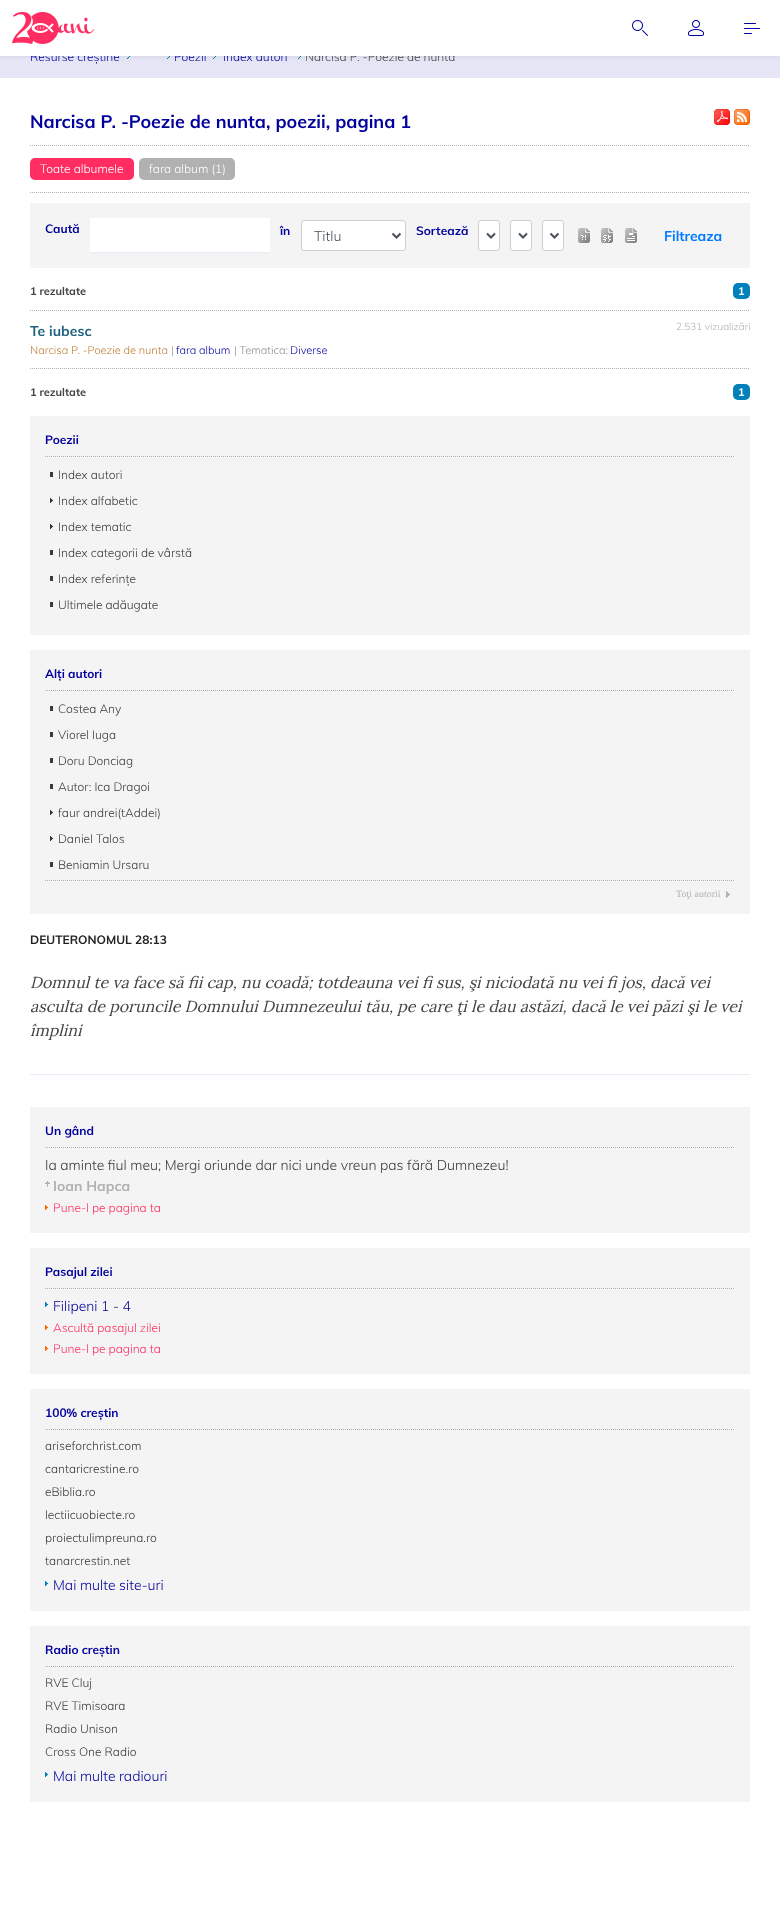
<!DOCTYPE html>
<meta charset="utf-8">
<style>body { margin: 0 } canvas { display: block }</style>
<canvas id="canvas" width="780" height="1912"></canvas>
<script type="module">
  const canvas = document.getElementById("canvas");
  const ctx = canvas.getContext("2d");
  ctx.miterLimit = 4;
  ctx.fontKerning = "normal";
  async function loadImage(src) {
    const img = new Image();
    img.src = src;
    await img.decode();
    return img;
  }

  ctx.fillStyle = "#ffffff";
  ctx.fillRect(0, 0, 780, 1912);
  ctx.fillStyle = "rgba(0, 0, 155, 0.1)";
  ctx.fillRect(0, 56, 780, 22);
  ctx.drawImage(await loadImage("img5.png"), 127, 56, 3, 3);
  ctx.drawImage(await loadImage("img6.png"), 167, 56, 3, 3);
  ctx.drawImage(await loadImage("img6.png"), 213, 56, 3, 3);
  ctx.drawImage(await loadImage("img5.png"), 298, 56, 3, 3);
  ctx.fillStyle = "rgba(0, 0, 0, 0.1)";
  ctx.filter = "blur(2.5px)";
  ctx.beginPath();
  ctx.rect(0, 0, 780, 56);
  ctx.fill();
  ctx.filter = "none";
  ctx.font = "300 12px Muli";
  ctx.fillStyle = "#00009c";
  ctx.fillText("Resurse creștine", 30, 61);
  ctx.fillText("Poezii", 174, 61);
  ctx.fillText("Index autori", 223, 61);
  ctx.fillStyle = "#444444";
  ctx.fillText("Narcisa P. -Poezie de nunta", 305, 61);
  ctx.fillStyle = "#ffffff";
  ctx.fillRect(0, 0, 780, 56);
  ctx.drawImage(await loadImage("img1.png"), 12, 12, 82, 32);
  ctx.drawImage(await loadImage("img2.png"), 632, 20, 16, 16);
  ctx.drawImage(await loadImage("img3.png"), 688, 20, 16, 16);
  ctx.drawImage(await loadImage("img4.png"), 744, 23, 16, 11);
  ctx.beginPath();
  ctx.moveTo(30, 145.5);
  ctx.lineTo(750, 145.5);
  ctx.strokeStyle = "#b1b1b1";
  ctx.setLineDash([1, 1]);
  ctx.stroke();
  ctx.font = "bold 18px Muli";
  ctx.fillStyle = "#00009c";
  ctx.fillText("Narcisa P. -Poezie de nunta, poezii, pagina 1", 30, 128);
  ctx.drawImage(await loadImage("img7.png"), 714, 109, 16, 16);
  ctx.drawImage(await loadImage("img8.png"), 734, 109, 16, 16);
  ctx.beginPath();
  ctx.moveTo(30, 192.5);
  ctx.lineTo(750, 192.5);
  ctx.stroke();
  ctx.fillStyle = "#ff2d61";
  ctx.beginPath();
  ctx.roundRect(30, 158, 104, 22, 5);
  ctx.fill();
  ctx.font = "300 12px Muli";
  ctx.fillStyle = "#ffffff";
  ctx.fillText("Toate albumele", 40, 173);
  ctx.fillStyle = "#b1b1b1";
  ctx.beginPath();
  ctx.roundRect(139, 158, 96, 22, 5);
  ctx.fill();
  ctx.fillStyle = "#ffffff";
  ctx.fillText("fara album (1)", 149, 173);
  ctx.fillStyle = "#f4f4f4";
  ctx.fillRect(30, 203, 720, 65);
  ctx.font = "bold 12px Muli";
  ctx.fillStyle = "#00009c";
  ctx.fillText("Caută", 45, 233);
  ctx.fillStyle = "#ffffff";
  ctx.fillRect(90, 218, 180, 34);
  ctx.fillStyle = "#ebebf7";
  ctx.fillRect(90, 252, 180, 1);
  ctx.fillStyle = "#00009c";
  ctx.fillText("în", 280, 235);
  ctx.fillStyle = "#ffffff";
  ctx.beginPath();
  ctx.roundRect(302, 221, 103, 29, 2);
  ctx.fill();
  ctx.beginPath();
  ctx.roundRect(301.5, 220.5, 104, 30, 2.5);
  ctx.strokeStyle = "rgba(0, 0, 0, 0.15)";
  ctx.setLineDash([]);
  ctx.stroke();
  ctx.beginPath();
  ctx.moveTo(392.5, 233.5);
  ctx.lineTo(396.5, 237.5);
  ctx.lineTo(400.5, 233.5);
  ctx.strokeStyle = "#495057";
  ctx.lineWidth = 2;
  ctx.stroke();
  ctx.font = "300 14px Muli";
  ctx.fillStyle = "#495057";
  ctx.fillText("Titlu", 314, 241);
  ctx.font = "bold 12px Muli";
  ctx.fillStyle = "#00009c";
  ctx.fillText("Sortează", 416, 235);
  ctx.fillStyle = "#ffffff";
  ctx.beginPath();
  ctx.roundRect(479, 221, 20, 29, 2);
  ctx.fill();
  ctx.beginPath();
  ctx.roundRect(478.5, 220.5, 21, 30, 2.5);
  ctx.strokeStyle = "rgba(0, 0, 0, 0.15)";
  ctx.lineWidth = 1;
  ctx.stroke();
  ctx.beginPath();
  ctx.moveTo(487, 233.5);
  ctx.lineTo(491, 237.5);
  ctx.lineTo(495, 233.5);
  ctx.strokeStyle = "#495057";
  ctx.lineWidth = 2;
  ctx.stroke();
  ctx.beginPath();
  ctx.roundRect(511, 221, 20, 29, 2);
  ctx.fill();
  ctx.beginPath();
  ctx.roundRect(510.5, 220.5, 21, 30, 2.5);
  ctx.strokeStyle = "rgba(0, 0, 0, 0.15)";
  ctx.lineWidth = 1;
  ctx.stroke();
  ctx.beginPath();
  ctx.moveTo(519, 233.5);
  ctx.lineTo(523, 237.5);
  ctx.lineTo(527, 233.5);
  ctx.strokeStyle = "#495057";
  ctx.lineWidth = 2;
  ctx.stroke();
  ctx.beginPath();
  ctx.roundRect(543, 221, 20, 29, 2);
  ctx.fill();
  ctx.beginPath();
  ctx.roundRect(542.5, 220.5, 21, 30, 2.5);
  ctx.strokeStyle = "rgba(0, 0, 0, 0.15)";
  ctx.lineWidth = 1;
  ctx.stroke();
  ctx.beginPath();
  ctx.moveTo(550.5, 233.5);
  ctx.lineTo(554.5, 237.5);
  ctx.lineTo(558.5, 233.5);
  ctx.strokeStyle = "#495057";
  ctx.lineWidth = 2;
  ctx.stroke();
  ctx.drawImage(await loadImage("img9.png"), 578, 228, 12, 15);
  ctx.drawImage(await loadImage("img10.png"), 601, 228, 12, 15);
  ctx.drawImage(await loadImage("img11.png"), 625, 228, 12, 15);
  ctx.font = "bold 14px Muli";
  ctx.fillStyle = "#007bff";
  ctx.fillText("Filtreaza", 664, 241);
  ctx.beginPath();
  ctx.moveTo(30, 310.5);
  ctx.lineTo(750, 310.5);
  ctx.strokeStyle = "#b1b1b1";
  ctx.lineWidth = 1;
  ctx.setLineDash([1, 1]);
  ctx.stroke();
  ctx.font = "bold 11px Muli";
  ctx.fillStyle = "#444444";
  ctx.fillText("1 rezultate", 30, 295);
  ctx.fillStyle = "#0081bc";
  ctx.beginPath();
  ctx.roundRect(733, 283, 17, 16, 5);
  ctx.fill();
  ctx.fillStyle = "#ffffff";
  ctx.fillText("1", 738, 295);
  ctx.beginPath();
  ctx.moveTo(30, 368.5);
  ctx.lineTo(750, 368.5);
  ctx.stroke();
  ctx.font = "bold 14px Muli";
  ctx.fillStyle = "#20627f";
  ctx.fillText("Te iubesc", 30, 336);
  ctx.font = "300 11px Muli";
  ctx.fillStyle = "#bf7c30";
  ctx.fillText("Narcisa P. -Poezie de nunta", 30, 354);
  ctx.fillStyle = "#8e8e8e";
  ctx.fillText("|", 171, 354);
  ctx.fillStyle = "#00009c";
  ctx.fillText("fara album", 176, 354);
  ctx.fillStyle = "#8e8e8e";
  ctx.fillText("| Tematica:", 234, 354);
  ctx.fillStyle = "#00009c";
  ctx.fillText("Diverse", 290, 354);
  ctx.font = "300 10px Muli";
  ctx.fillStyle = "#b1b1b1";
  ctx.fillText("2.531 vizualizări", 676, 330);
  ctx.font = "bold 11px Muli";
  ctx.fillStyle = "#444444";
  ctx.fillText("1 rezultate", 30, 396);
  ctx.fillStyle = "#0081bc";
  ctx.beginPath();
  ctx.roundRect(733, 384, 17, 16, 5);
  ctx.fill();
  ctx.fillStyle = "#ffffff";
  ctx.fillText("1", 738, 396);
  ctx.fillStyle = "#f4f4f4";
  ctx.fillRect(30, 416, 720, 219);
  ctx.beginPath();
  ctx.moveTo(45, 456.5);
  ctx.lineTo(735, 456.5);
  ctx.stroke();
  ctx.font = "bold 12px Muli";
  ctx.fillStyle = "#00009c";
  ctx.fillText("Poezii", 45, 444);
  ctx.font = "300 12px Muli";
  ctx.fillStyle = "#3a3a3a";
  ctx.fillText("Index autori", 58, 479);
  ctx.fillRect(50, 472, 3, 5);
  ctx.drawImage(await loadImage("img12.png"), 50, 498, 4, 5);
  ctx.fillText("Index alfabetic", 58, 505);
  ctx.drawImage(await loadImage("img12.png"), 50, 524, 4, 5);
  ctx.fillText("Index tematic", 58, 531);
  ctx.fillText("Index categorii de vârstă", 58, 557);
  ctx.fillRect(50, 550, 3, 5);
  ctx.fillText("Index referințe", 58, 583);
  ctx.fillRect(50, 576, 3, 5);
  ctx.fillText("Ultimele adăugate", 58, 609);
  ctx.fillRect(50, 602, 3, 5);
  ctx.fillStyle = "#f4f4f4";
  ctx.fillRect(30, 650, 720, 264);
  ctx.beginPath();
  ctx.moveTo(45, 690.5);
  ctx.lineTo(735, 690.5);
  ctx.stroke();
  ctx.font = "bold 12px Muli";
  ctx.fillStyle = "#00009c";
  ctx.fillText("Alți autori", 45, 678);
  ctx.font = "300 12px Muli";
  ctx.fillStyle = "#3a3a3a";
  ctx.fillText("Costea Any", 58, 713);
  ctx.fillRect(50, 706, 3, 5);
  ctx.fillText("Viorel Iuga", 58, 739);
  ctx.fillRect(50, 732, 3, 5);
  ctx.fillText("Doru Donciag", 58, 765);
  ctx.fillRect(50, 758, 3, 5);
  ctx.fillText("Autor: Ica Dragoi", 58, 791);
  ctx.fillRect(50, 784, 3, 5);
  ctx.drawImage(await loadImage("img12.png"), 50, 810, 4, 5);
  ctx.fillText("faur andrei(tAddei)", 58, 817);
  ctx.drawImage(await loadImage("img12.png"), 50, 836, 4, 5);
  ctx.fillText("Daniel Talos", 58, 843);
  ctx.fillText("Beniamin Ursaru", 58, 869);
  ctx.fillRect(50, 862, 3, 5);
  ctx.beginPath();
  ctx.moveTo(45, 880.5);
  ctx.lineTo(735, 880.5);
  ctx.stroke();
  ctx.drawImage(await loadImage("img13.png"), 726, 891, 4, 7);
  ctx.font = "10px Liberation Serif";
  ctx.fillStyle = "#b1b1b1";
  ctx.fillText("Toţi autorii", 676, 897);
  ctx.fillStyle = "#ebebf7";
  ctx.fillRect(30, 1074, 720, 1);
  ctx.font = "bold 12px Muli";
  ctx.fillStyle = "#222222";
  ctx.fillText("DEUTERONOMUL 28:13", 30, 944);
  ctx.font = "italic 16px Lora";
  ctx.fillStyle = "#444444";
  ctx.fillText("Domnul te va face să fii cap, nu coadă; totdeauna vei fi sus, şi niciodată nu vei fi jos, dacă vei", 30, 988);
  ctx.fillText("asculta de poruncile Domnului Dumnezeului tău, pe care ţi le dau astăzi, dacă le vei păzi şi le vei", 30, 1012);
  ctx.fillText("împlini", 30, 1036);
  ctx.fillStyle = "#f4f4f4";
  ctx.fillRect(30, 1107, 720, 126);
  ctx.beginPath();
  ctx.moveTo(45, 1147.5);
  ctx.lineTo(735, 1147.5);
  ctx.stroke();
  ctx.font = "bold 12px Muli";
  ctx.fillStyle = "#00009c";
  ctx.fillText("Un gând", 45, 1135);
  ctx.font = "300 14px Muli";
  ctx.fillStyle = "#3a3a3a";
  ctx.fillText("Ia aminte fiul meu; Mergi oriunde dar nici unde vreun pas fără Dumnezeu!", 45, 1170);
  ctx.drawImage(await loadImage("img14.png"), 45, 1181, 5, 6);
  ctx.font = "bold 14px Muli";
  ctx.fillStyle = "#b1b1b1";
  ctx.fillText("Ioan Hapca", 53, 1191);
  ctx.drawImage(await loadImage("img15.png"), 45, 1205, 4, 5);
  ctx.font = "300 12px Muli";
  ctx.fillStyle = "#ff2d61";
  ctx.fillText("Pune-l pe pagina ta", 53, 1212);
  ctx.fillStyle = "#f4f4f4";
  ctx.fillRect(30, 1248, 720, 126);
  ctx.beginPath();
  ctx.moveTo(45, 1288.5);
  ctx.lineTo(735, 1288.5);
  ctx.stroke();
  ctx.font = "bold 12px Muli";
  ctx.fillStyle = "#00009c";
  ctx.fillText("Pasajul zilei", 45, 1276);
  ctx.drawImage(await loadImage("img16.png"), 45, 1302, 4, 5);
  ctx.font = "300 14px Muli";
  ctx.fillText("Filipeni 1 - 4", 53, 1311);
  ctx.drawImage(await loadImage("img15.png"), 45, 1325, 4, 5);
  ctx.font = "300 12px Muli";
  ctx.fillStyle = "#ff2d61";
  ctx.fillText("Ascultă pasajul zilei", 53, 1332);
  ctx.drawImage(await loadImage("img15.png"), 45, 1346, 4, 5);
  ctx.fillText("Pune-l pe pagina ta", 53, 1353);
  ctx.fillStyle = "#f4f4f4";
  ctx.fillRect(30, 1389, 720, 222);
  ctx.beginPath();
  ctx.moveTo(45, 1429.5);
  ctx.lineTo(735, 1429.5);
  ctx.stroke();
  ctx.font = "bold 12px Muli";
  ctx.fillStyle = "#00009c";
  ctx.fillText("100% creștin", 45, 1417);
  ctx.font = "300 12px Muli";
  ctx.fillStyle = "#3a3a3a";
  ctx.fillText("ariseforchrist.com", 45, 1450);
  ctx.fillText("cantaricrestine.ro", 45, 1473);
  ctx.fillText("eBiblia.ro", 45, 1496);
  ctx.fillText("lectiicuobiecte.ro", 45, 1519);
  ctx.fillText("proiectulimpreuna.ro", 45, 1542);
  ctx.fillText("tanarcrestin.net", 45, 1565);
  ctx.drawImage(await loadImage("img16.png"), 45, 1581, 4, 5);
  ctx.font = "300 14px Muli";
  ctx.fillStyle = "#00009c";
  ctx.fillText("Mai multe site-uri", 53, 1590);
  ctx.fillStyle = "#f4f4f4";
  ctx.fillRect(30, 1626, 720, 176);
  ctx.beginPath();
  ctx.moveTo(45, 1666.5);
  ctx.lineTo(735, 1666.5);
  ctx.stroke();
  ctx.font = "bold 12px Muli";
  ctx.fillStyle = "#00009c";
  ctx.fillText("Radio creștin", 45, 1654);
  ctx.font = "300 12px Muli";
  ctx.fillStyle = "#3a3a3a";
  ctx.fillText("RVE Cluj", 45, 1687);
  ctx.fillText("RVE Timisoara", 45, 1710);
  ctx.fillText("Radio Unison", 45, 1733);
  ctx.fillText("Cross One Radio", 45, 1756);
  ctx.drawImage(await loadImage("img16.png"), 45, 1772, 4, 5);
  ctx.font = "300 14px Muli";
  ctx.fillStyle = "#00009c";
  ctx.fillText("Mai multe radiouri", 53, 1781);
</script>
